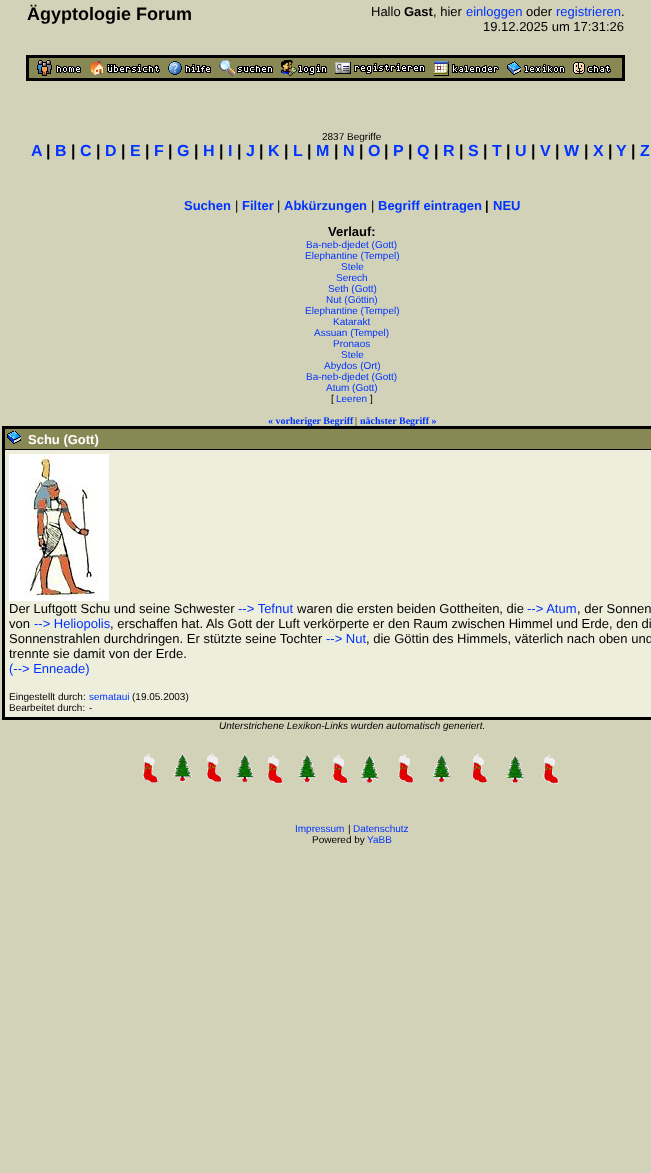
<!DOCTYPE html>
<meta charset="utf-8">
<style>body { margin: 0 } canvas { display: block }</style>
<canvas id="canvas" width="651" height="1173"></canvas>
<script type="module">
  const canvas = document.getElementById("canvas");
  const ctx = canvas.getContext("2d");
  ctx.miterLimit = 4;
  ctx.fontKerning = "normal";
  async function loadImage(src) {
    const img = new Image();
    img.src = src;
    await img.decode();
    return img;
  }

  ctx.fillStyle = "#d2d2b9";
  ctx.fillRect(0, 0, 651, 1173);
  ctx.font = "bold 18px Liberation Sans";
  ctx.fillStyle = "#000000";
  ctx.fillText("Ägyptologie Forum", 27, 20);
  ctx.font = "13px Liberation Sans";
  ctx.fillText("Hallo", 371, 16);
  ctx.font = "bold 13px Liberation Sans";
  ctx.fillText("Gast", 404, 16);
  ctx.font = "13px Liberation Sans";
  ctx.fillText(", hier", 433, 16);
  ctx.fillStyle = "#0033ff";
  ctx.fillText("einloggen", 466, 16);
  ctx.fillStyle = "#000000";
  ctx.fillText("oder", 526, 16);
  ctx.fillStyle = "#0033ff";
  ctx.fillText("registrieren", 556, 16);
  ctx.fillStyle = "#000000";
  ctx.fillText(".", 621, 16);
  ctx.fillText("19.12.2025 um 17:31:26", 483, 31);
  ctx.fillRect(26, 55, 599, 26);
  ctx.fillStyle = "#888855";
  ctx.fillRect(29, 58, 593, 20);
  ctx.drawImage(await loadImage("img1.png"), 37, 60, 44, 16);
  ctx.drawImage(await loadImage("img2.png"), 89, 61, 71, 14);
  ctx.drawImage(await loadImage("img3.png"), 168, 61, 43, 14);
  ctx.drawImage(await loadImage("img4.png"), 219, 60, 54, 16);
  ctx.drawImage(await loadImage("img5.png"), 281, 60, 46, 16);
  ctx.drawImage(await loadImage("img6.png"), 335, 62, 90, 12);
  ctx.drawImage(await loadImage("img7.png"), 433, 61, 66, 15);
  ctx.drawImage(await loadImage("img8.png"), 507, 61, 58, 14);
  ctx.drawImage(await loadImage("img9.png"), 573, 62, 38, 12);
  ctx.font = "10px Liberation Sans";
  ctx.fillStyle = "#000000";
  ctx.fillText("2837 Begriffe", 322, 140);
  ctx.font = "bold 16px Liberation Sans";
  ctx.fillStyle = "#0033ff";
  ctx.fillText("A", 31, 156);
  ctx.fillStyle = "#000000";
  ctx.fillText("|", 46, 156);
  ctx.fillStyle = "#0033ff";
  ctx.fillText("B", 55, 156);
  ctx.fillStyle = "#000000";
  ctx.fillText("|", 71, 156);
  ctx.fillStyle = "#0033ff";
  ctx.fillText("C", 80, 156);
  ctx.fillStyle = "#000000";
  ctx.fillText("|", 96, 156);
  ctx.fillStyle = "#0033ff";
  ctx.fillText("D", 105, 156);
  ctx.fillStyle = "#000000";
  ctx.fillText("|", 121, 156);
  ctx.fillStyle = "#0033ff";
  ctx.fillText("E", 130, 156);
  ctx.fillStyle = "#000000";
  ctx.fillText("|", 145, 156);
  ctx.fillStyle = "#0033ff";
  ctx.fillText("F", 154, 156);
  ctx.fillStyle = "#000000";
  ctx.fillText("|", 168, 156);
  ctx.fillStyle = "#0033ff";
  ctx.fillText("G", 177, 156);
  ctx.fillStyle = "#000000";
  ctx.fillText("|", 194, 156);
  ctx.fillStyle = "#0033ff";
  ctx.fillText("H", 203, 156);
  ctx.fillStyle = "#000000";
  ctx.fillText("|", 219, 156);
  ctx.fillStyle = "#0033ff";
  ctx.fillText("I", 228, 156);
  ctx.fillStyle = "#000000";
  ctx.fillText("|", 237, 156);
  ctx.fillStyle = "#0033ff";
  ctx.fillText("J", 246, 156);
  ctx.fillStyle = "#000000";
  ctx.fillText("|", 259, 156);
  ctx.fillStyle = "#0033ff";
  ctx.fillText("K", 268, 156);
  ctx.fillStyle = "#000000";
  ctx.fillText("|", 284, 156);
  ctx.fillStyle = "#0033ff";
  ctx.fillText("L", 293, 156);
  ctx.fillStyle = "#000000";
  ctx.fillText("|", 307, 156);
  ctx.fillStyle = "#0033ff";
  ctx.fillText("M", 316, 156);
  ctx.fillStyle = "#000000";
  ctx.fillText("|", 334, 156);
  ctx.fillStyle = "#0033ff";
  ctx.fillText("N", 343, 156);
  ctx.fillStyle = "#000000";
  ctx.fillText("|", 359, 156);
  ctx.fillStyle = "#0033ff";
  ctx.fillText("O", 368, 156);
  ctx.fillStyle = "#000000";
  ctx.fillText("|", 384, 156);
  ctx.fillStyle = "#0033ff";
  ctx.fillText("P", 393, 156);
  ctx.fillStyle = "#000000";
  ctx.fillText("|", 408, 156);
  ctx.fillStyle = "#0033ff";
  ctx.fillText("Q", 417, 156);
  ctx.fillStyle = "#000000";
  ctx.fillText("|", 434, 156);
  ctx.fillStyle = "#0033ff";
  ctx.fillText("R", 443, 156);
  ctx.fillStyle = "#000000";
  ctx.fillText("|", 459, 156);
  ctx.fillStyle = "#0033ff";
  ctx.fillText("S", 468, 156);
  ctx.fillStyle = "#000000";
  ctx.fillText("|", 483, 156);
  ctx.fillStyle = "#0033ff";
  ctx.fillText("T", 492, 156);
  ctx.fillStyle = "#000000";
  ctx.fillText("|", 506, 156);
  ctx.fillStyle = "#0033ff";
  ctx.fillText("U", 515, 156);
  ctx.fillStyle = "#000000";
  ctx.fillText("|", 531, 156);
  ctx.fillStyle = "#0033ff";
  ctx.fillText("V", 540, 156);
  ctx.fillStyle = "#000000";
  ctx.fillText("|", 555, 156);
  ctx.fillStyle = "#0033ff";
  ctx.fillText("W", 564, 156);
  ctx.fillStyle = "#000000";
  ctx.fillText("|", 584, 156);
  ctx.fillStyle = "#0033ff";
  ctx.fillText("X", 593, 156);
  ctx.fillStyle = "#000000";
  ctx.fillText("|", 608, 156);
  ctx.fillStyle = "#0033ff";
  ctx.fillText("Y", 616, 156);
  ctx.fillStyle = "#000000";
  ctx.fillText("|", 631, 156);
  ctx.fillStyle = "#0033ff";
  ctx.fillText("Z", 640, 156);
  ctx.font = "bold 13px Liberation Sans";
  ctx.fillText("Suchen", 184, 210);
  ctx.font = "13px Liberation Sans";
  ctx.fillStyle = "#000000";
  ctx.fillText("|", 235, 210);
  ctx.font = "bold 13px Liberation Sans";
  ctx.fillStyle = "#0033ff";
  ctx.fillText("Filter", 242, 210);
  ctx.font = "13px Liberation Sans";
  ctx.fillStyle = "#000000";
  ctx.fillText("|", 277, 210);
  ctx.font = "bold 13px Liberation Sans";
  ctx.fillStyle = "#0033ff";
  ctx.fillText("Abkürzungen", 284, 210);
  ctx.font = "13px Liberation Sans";
  ctx.fillStyle = "#000000";
  ctx.fillText("|", 371, 210);
  ctx.font = "bold 13px Liberation Sans";
  ctx.fillStyle = "#0033ff";
  ctx.fillText("Begriff eintragen", 378, 210);
  ctx.fillStyle = "#000000";
  ctx.fillText("|", 485, 210);
  ctx.fillStyle = "#0033ff";
  ctx.fillText("NEU", 493, 210);
  ctx.fillStyle = "#000000";
  ctx.fillText("Verlauf:", 328, 236);
  ctx.font = "10px Liberation Sans";
  ctx.fillStyle = "#0033ff";
  ctx.fillText("Ba-neb-djedet (Gott)", 306, 248);
  ctx.fillText("Elephantine (Tempel)", 305, 259);
  ctx.fillText("Stele", 341, 270);
  ctx.fillText("Serech", 336, 281);
  ctx.fillText("Seth (Gott)", 328, 292);
  ctx.fillText("Nut (Göttin)", 326, 303);
  ctx.fillText("Elephantine (Tempel)", 305, 314);
  ctx.fillText("Katarakt", 333, 325);
  ctx.fillText("Assuan (Tempel)", 314, 336);
  ctx.fillText("Pronaos", 333, 347);
  ctx.fillText("Stele", 341, 358);
  ctx.fillText("Abydos (Ort)", 324, 369);
  ctx.fillText("Ba-neb-djedet (Gott)", 306, 380);
  ctx.fillText("Atum (Gott)", 326, 391);
  ctx.fillStyle = "#000000";
  ctx.fillText("[", 331, 402);
  ctx.fillStyle = "#0033ff";
  ctx.fillText("Leeren", 336, 402);
  ctx.fillStyle = "#000000";
  ctx.fillText("]", 370, 402);
  ctx.fillRect(2, 426, 649, 294);
  ctx.font = "bold 10px Liberation Serif";
  ctx.fillStyle = "#0033ff";
  ctx.fillText("« vorheriger Begriff", 268, 424);
  ctx.font = "10px Liberation Serif";
  ctx.fillStyle = "#000000";
  ctx.fillText("|", 355, 424);
  ctx.font = "bold 10px Liberation Serif";
  ctx.fillStyle = "#0033ff";
  ctx.fillText("nächster Begriff »", 360, 424);
  ctx.fillStyle = "#888855";
  ctx.fillRect(5, 429, 646, 20);
  ctx.drawImage(await loadImage("img10.png"), 7, 431, 14, 13);
  ctx.font = "bold 13px Liberation Sans";
  ctx.fillStyle = "#ffffff";
  ctx.fillText("Schu (Gott)", 28, 444);
  ctx.fillStyle = "#eeeedd";
  ctx.fillRect(5, 450, 646, 267);
  ctx.drawImage(await loadImage("img11.png"), 9, 454, 100, 147);
  ctx.font = "13px Liberation Sans";
  ctx.fillStyle = "#000000";
  ctx.fillText("Der Luftgott Schu und seine Schwester", 9, 613);
  ctx.fillStyle = "#0033ff";
  ctx.fillText("--> Tefnut", 238, 613);
  ctx.fillStyle = "#000000";
  ctx.fillText("waren die ersten beiden Gottheiten, die", 297, 613);
  ctx.fillStyle = "#0033ff";
  ctx.fillText("--> Atum", 527, 613);
  ctx.fillStyle = "#000000";
  ctx.fillText(", der Sonnen", 577, 613);
  ctx.fillText("von", 9, 628);
  ctx.fillStyle = "#0033ff";
  ctx.fillText("--> Heliopolis", 34, 628);
  ctx.fillStyle = "#000000";
  ctx.fillText(", erschaffen hat. Als Gott der Luft verkörperte er den Raum zwischen Himmel und Erde, den di", 110, 628);
  ctx.fillText("Sonnenstrahlen durchdringen. Er stützte seine Tochter", 9, 643);
  ctx.fillStyle = "#0033ff";
  ctx.fillText("--> Nut", 326, 643);
  ctx.fillStyle = "#000000";
  ctx.fillText(", die Göttin des Himmels, väterlich nach oben und", 366, 643);
  ctx.fillText("trennte sie damit von der Erde.", 9, 658);
  ctx.fillStyle = "#0033ff";
  ctx.fillText("(--> Enneade)", 9, 673);
  ctx.font = "10px Liberation Sans";
  ctx.fillStyle = "#000000";
  ctx.fillText("Eingestellt durch:", 9, 700);
  ctx.fillStyle = "#0033ff";
  ctx.fillText("semataui", 89, 700);
  ctx.fillStyle = "#000000";
  ctx.fillText("(19.05.2003)", 132, 700);
  ctx.fillText("Bearbeitet durch:", 9, 711);
  ctx.fillText("-", 89, 711);
  ctx.font = "italic 10px Liberation Sans";
  ctx.fillText("Unterstrichene Lexikon-Links wurden automatisch generiert.", 219, 729);
  ctx.drawImage(await loadImage("img12.png"), 143, 753, 416, 31);
  ctx.font = "10px Liberation Sans";
  ctx.fillStyle = "#0033ff";
  ctx.fillText("Impressum", 295, 832);
  ctx.fillStyle = "#000000";
  ctx.fillText("|", 348, 832);
  ctx.fillStyle = "#0033ff";
  ctx.fillText("Datenschutz", 353, 832);
  ctx.fillStyle = "#000000";
  ctx.fillText("Powered by", 312, 843);
  ctx.fillStyle = "#0033ff";
  ctx.fillText("YaBB", 367, 843);
</script>
